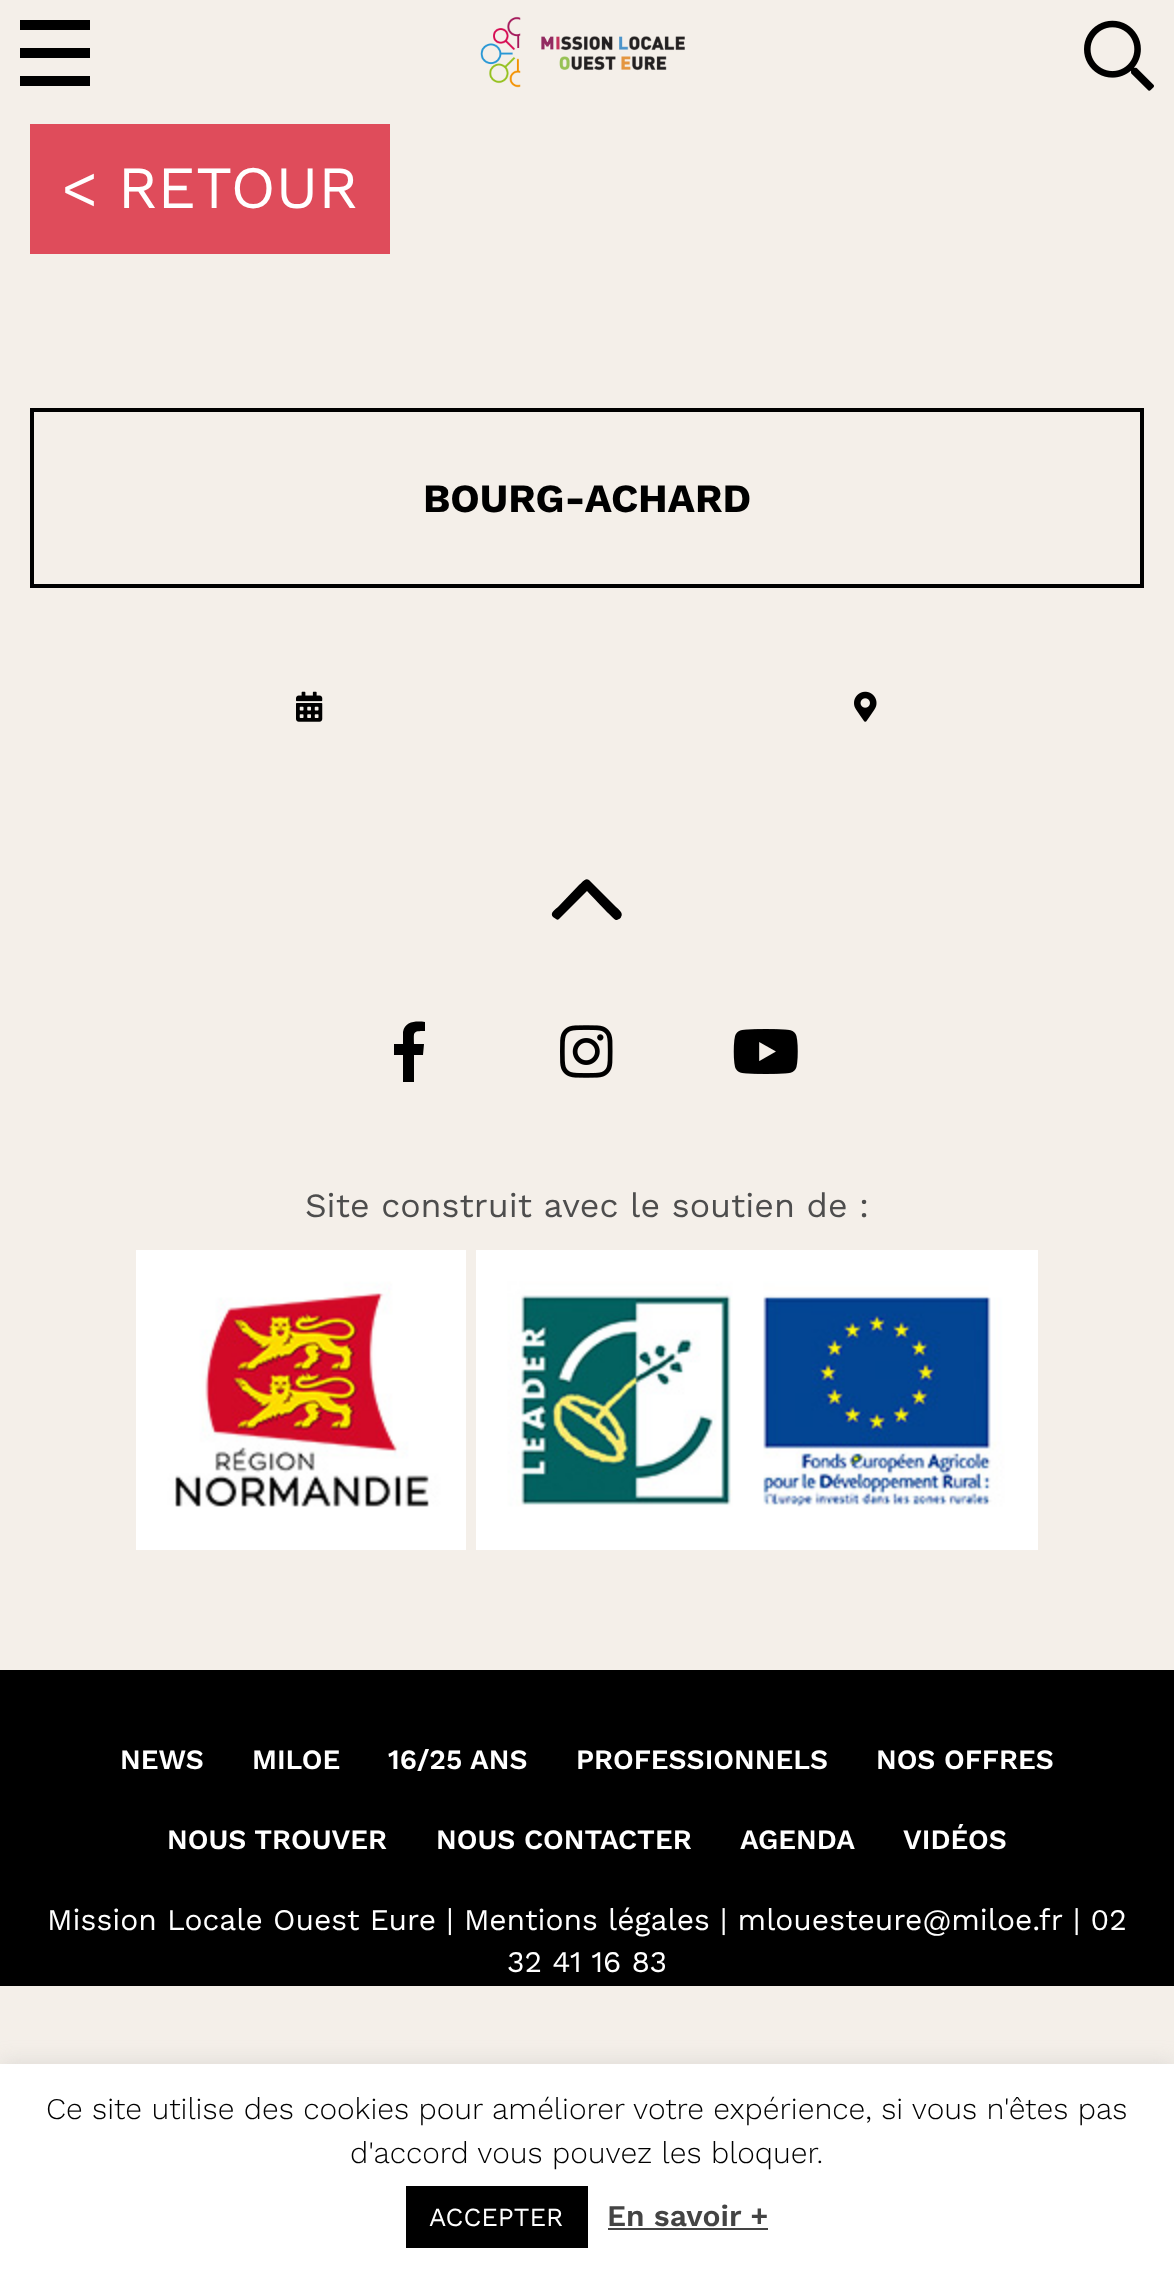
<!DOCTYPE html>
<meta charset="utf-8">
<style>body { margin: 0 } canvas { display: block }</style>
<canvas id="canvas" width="1174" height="2281"></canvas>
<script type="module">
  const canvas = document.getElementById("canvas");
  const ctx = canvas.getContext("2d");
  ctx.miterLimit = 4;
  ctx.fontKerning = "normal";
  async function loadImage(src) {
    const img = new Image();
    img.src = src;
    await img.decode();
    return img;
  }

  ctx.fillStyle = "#f4efe9";
  ctx.fillRect(0, 0, 1174, 2281);
  ctx.fillStyle = "#000000";
  ctx.fillRect(20, 20, 70, 10);
  ctx.fillRect(20, 48, 70, 10);
  ctx.fillRect(20, 76, 70, 10);
  ctx.drawImage(await loadImage("img1.png"), 480, 16, 205, 72);
  ctx.drawImage(await loadImage("img2.png"), 1084, 20, 70, 71);
  ctx.fillStyle = "#df4c5b";
  ctx.fillRect(30, 124, 360, 130);
  ctx.font = "60px Work Sans";
  ctx.fillStyle = "#ffffff";
  ctx.fillText("< RETOUR", 61, 208);
  ctx.strokeStyle = "#000000";
  ctx.lineWidth = 4;
  ctx.strokeRect(32, 410, 1110, 176);
  ctx.font = "bold 40px Work Sans";
  ctx.fillStyle = "#000000";
  ctx.fillText("BOURG-ACHARD", 423, 512);
  ctx.drawImage(await loadImage("img3.png"), 296, 691, 27, 31);
  ctx.drawImage(await loadImage("img4.png"), 854, 691, 23, 31);
  ctx.beginPath();
  ctx.moveTo(589, 880);
  ctx.lineTo(616, 907);
  ctx.bezierCurveTo(618, 909, 624, 913, 621, 917);
  ctx.bezierCurveTo(621, 918, 618, 920, 616, 920);
  ctx.bezierCurveTo(614, 920, 591, 895, 587, 891);
  ctx.lineTo(559, 919);
  ctx.bezierCurveTo(558, 920, 557, 920, 556, 919);
  ctx.lineTo(553, 917);
  ctx.bezierCurveTo(549, 913, 556, 909, 558, 907);
  ctx.lineTo(579, 885);
  ctx.bezierCurveTo(582, 883, 585, 877, 589, 880);
  ctx.closePath();
  ctx.fill();
  ctx.beginPath();
  ctx.moveTo(403, 1082);
  ctx.lineTo(403, 1055);
  ctx.lineTo(394, 1055);
  ctx.lineTo(394, 1044);
  ctx.lineTo(403, 1044);
  ctx.lineTo(403, 1032);
  ctx.bezierCurveTo(405, 1021, 416, 1021, 425, 1022);
  ctx.lineTo(425, 1031);
  ctx.bezierCurveTo(412, 1031, 414, 1032, 414, 1044);
  ctx.lineTo(424, 1044);
  ctx.lineTo(423, 1055);
  ctx.lineTo(414, 1055);
  ctx.lineTo(414, 1082);
  ctx.closePath();
  ctx.fill();
  ctx.drawImage(await loadImage("img5.png"), 560, 1025, 53, 53);
  ctx.drawImage(await loadImage("img6.png"), 733, 1029, 65, 45);
  ctx.font = "34px Work Sans";
  ctx.fillStyle = "#4d4d4d";
  ctx.fillText("Site construit avec le soutien de :", 305, 1217);
  ctx.drawImage(await loadImage("img7.png"), 136, 1250, 330, 300);
  ctx.drawImage(await loadImage("img8.png"), 476, 1250, 562, 300);
  ctx.fillStyle = "#000000";
  ctx.fillRect(0, 1670, 1174, 316);
  ctx.font = "600 28px Work Sans";
  ctx.fillStyle = "#ffffff";
  ctx.fillText("NEWS", 120, 1769);
  ctx.fillText("MILOE", 252, 1769);
  ctx.fillText("16/25 ANS", 388, 1769);
  ctx.fillText("PROFESSIONNELS", 576, 1769);
  ctx.fillText("NOS OFFRES", 876, 1769);
  ctx.fillText("NOUS TROUVER", 167, 1849);
  ctx.fillText("NOUS CONTACTER", 436, 1849);
  ctx.fillText("AGENDA", 740, 1849);
  ctx.fillText("VIDÉOS", 903, 1849);
  ctx.font = "30px Work Sans";
  ctx.fillText("Mission Locale Ouest Eure | Mentions légales | mlouesteure@miloe.fr", 47, 1930);
  ctx.fillText("| 02", 1073, 1930);
  ctx.fillText("32 41 16 83", 507, 1972);
  ctx.fillStyle = "rgba(172, 171, 171, 0.3)";
  ctx.filter = "blur(10px)";
  ctx.beginPath();
  ctx.rect(0, 2062, 1174, 218);
  ctx.fill();
  ctx.filter = "none";
  ctx.fillStyle = "#ffffff";
  ctx.fillRect(0, 2064, 1174, 217);
  ctx.font = "300 30px Work Sans";
  ctx.fillStyle = "#000000";
  ctx.fillText("Ce site utilise des cookies pour améliorer votre expérience, si vous n'êtes pas", 46, 2119);
  ctx.fillText("d'accord vous pouvez les bloquer.", 350, 2163);
  ctx.fillRect(406, 2186, 182, 62);
  ctx.font = "26px Work Sans";
  ctx.fillStyle = "#ffffff";
  ctx.fillText("ACCEPTER", 429, 2226);
  ctx.font = "600 30px Work Sans";
  ctx.fillStyle = "#444444";
  ctx.fillText("En savoir +", 607, 2226);
  ctx.fillRect(608, 2228, 160, 2);
</script>
